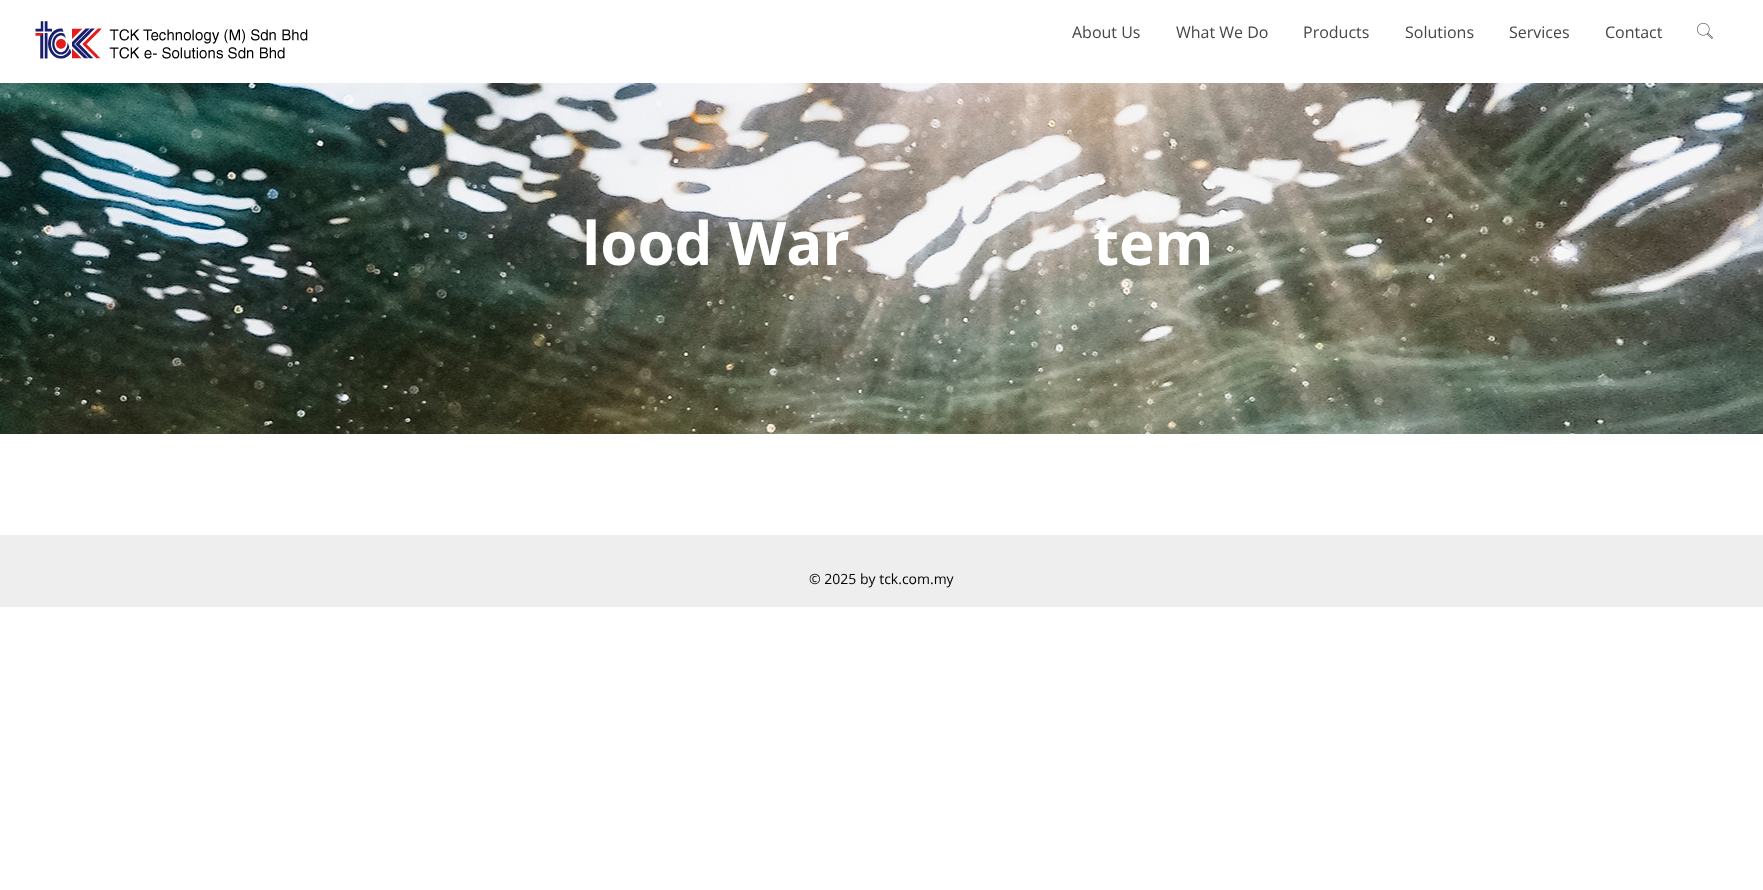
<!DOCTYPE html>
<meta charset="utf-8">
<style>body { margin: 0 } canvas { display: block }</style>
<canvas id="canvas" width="1763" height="890"></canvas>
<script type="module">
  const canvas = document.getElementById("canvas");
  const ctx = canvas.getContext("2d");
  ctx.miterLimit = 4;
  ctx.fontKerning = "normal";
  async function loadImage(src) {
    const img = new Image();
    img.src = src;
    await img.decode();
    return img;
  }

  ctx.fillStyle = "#ffffff";
  ctx.fillRect(0, 0, 1763, 890);
  ctx.drawImage(await loadImage("img1.png"), 35, 21, 273, 38);
  ctx.font = "16px Open Sans";
  ctx.fillStyle = "#464646";
  ctx.fillText("About Us", 1072, 38);
  ctx.fillText("What We Do", 1176, 38);
  ctx.fillText("Products", 1303, 38);
  ctx.fillText("Solutions", 1405, 38);
  ctx.fillText("Services", 1509, 38);
  ctx.fillText("Contact", 1605, 38);
  ctx.drawImage(await loadImage("img2.png"), 1697, 23, 16, 16);
  ctx.drawImage(await loadImage("img3.png"), 0, 83, 1763, 351);
  ctx.font = "bold 60px Open Sans";
  ctx.fillStyle = "#ffffff";
  ctx.fillText("lood War", 582, 265);
  ctx.fillText("tem", 1093, 265);
  ctx.fillStyle = "#eeeeee";
  ctx.fillRect(0, 535, 1763, 72);
  ctx.font = "14px Open Sans";
  ctx.fillStyle = "#000000";
  ctx.fillText("© 2025 by tck.com.my", 809, 584);
</script>
